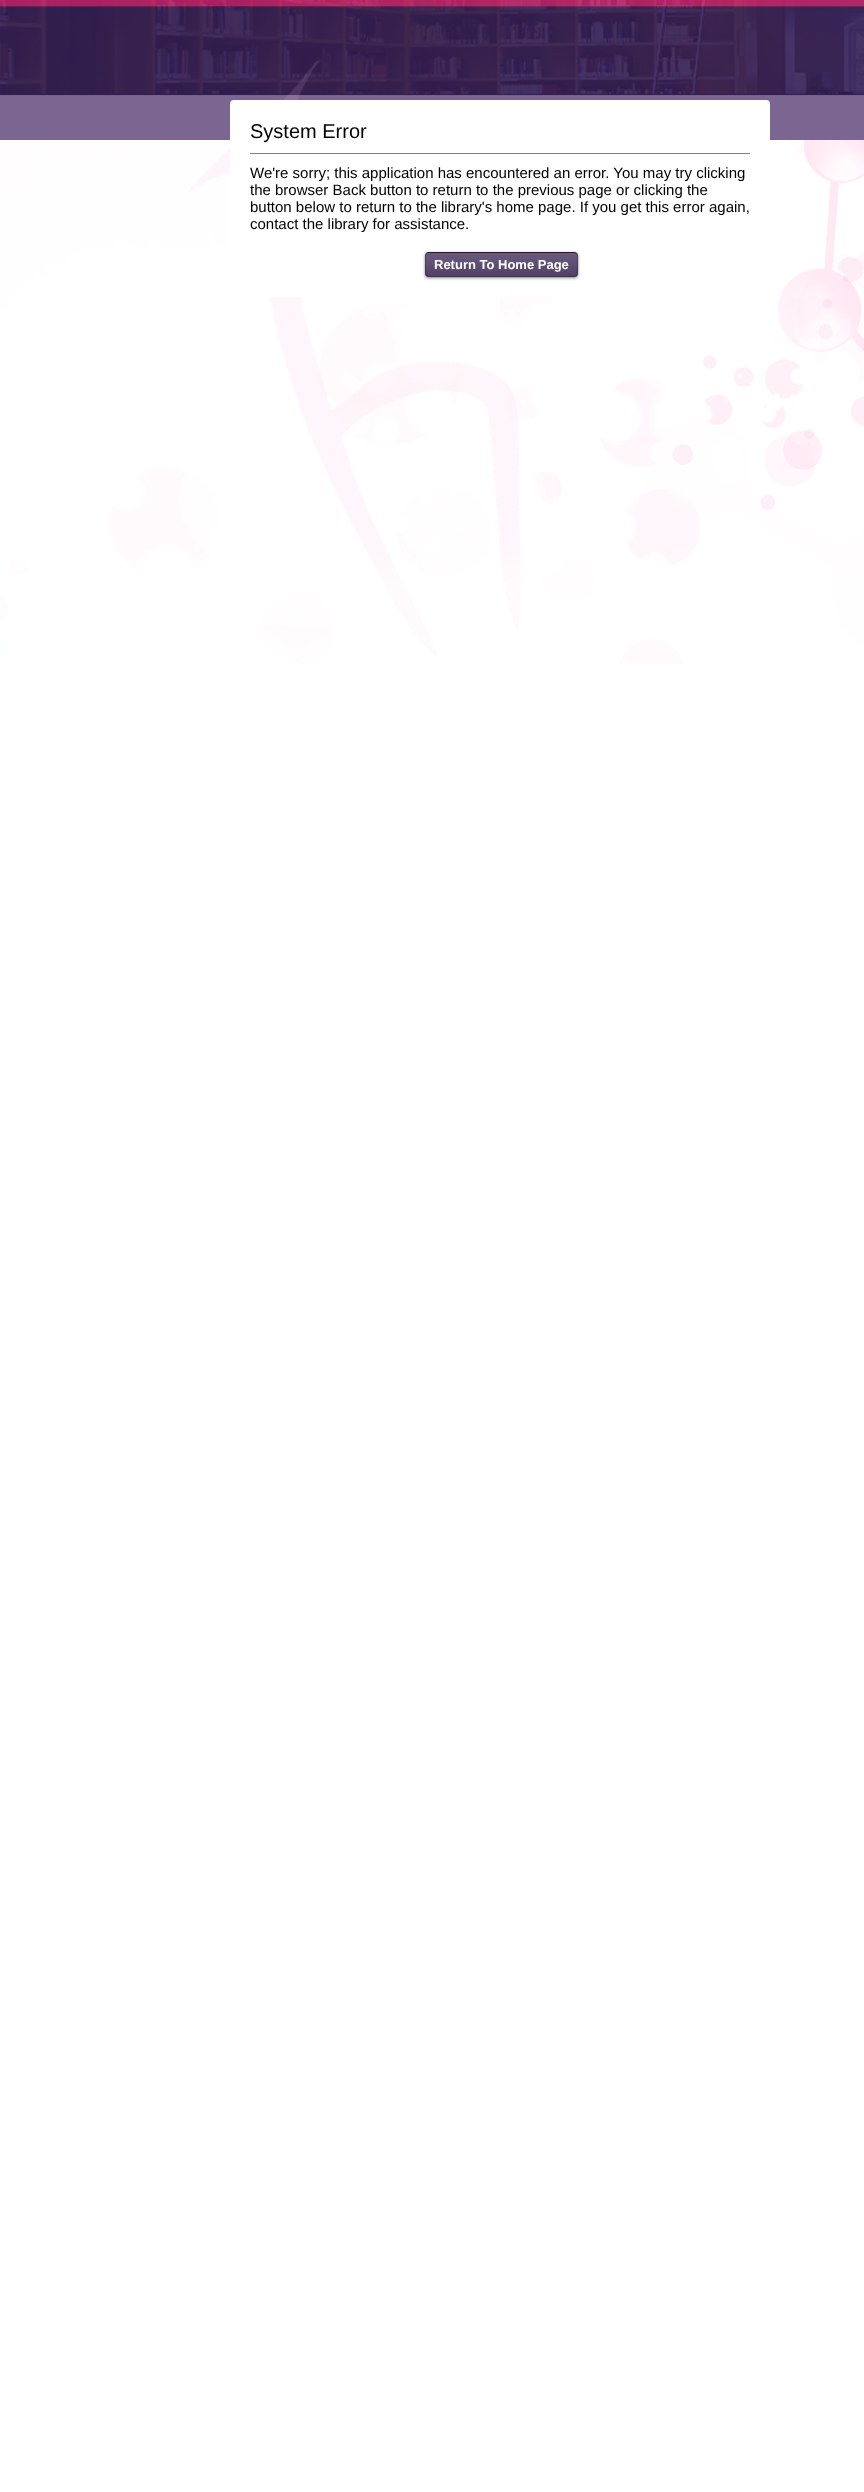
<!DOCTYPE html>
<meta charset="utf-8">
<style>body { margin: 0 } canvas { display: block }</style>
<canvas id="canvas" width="864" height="2492"></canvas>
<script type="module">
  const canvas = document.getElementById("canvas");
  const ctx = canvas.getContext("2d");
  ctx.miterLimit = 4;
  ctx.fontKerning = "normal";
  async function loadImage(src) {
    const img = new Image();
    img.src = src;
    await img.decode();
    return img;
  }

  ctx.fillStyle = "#ffffff";
  ctx.fillRect(0, 0, 864, 2492);
  ctx.drawImage(await loadImage("img1.png"), 0, 0, 864, 664);
  ctx.beginPath();
  ctx.roundRect(230, 100, 540, 197, 4);
  ctx.fill();
  ctx.fillStyle = "#808080";
  ctx.fillRect(250, 153, 500, 1);
  ctx.font = "20px Liberation Sans";
  ctx.fillStyle = "#000000";
  ctx.fillText("System Error", 250, 138);
  ctx.font = "15px Liberation Sans";
  ctx.fillText("We're sorry; this application has encountered an error. You may try clicking", 250, 178);
  ctx.fillText("the browser Back button to return to the previous page or clicking the", 250, 195);
  ctx.fillText("button below to return to the library's home page. If you get this error again,", 250, 212);
  ctx.fillText("contact the library for assistance.", 250, 229);
  ctx.fillStyle = "rgba(0, 0, 0, 0.5)";
  ctx.filter = "blur(1.5px)";
  ctx.beginPath();
  ctx.roundRect(425, 253, 153, 25, 4);
  ctx.fill();
  ctx.filter = "none";
  ctx.fillStyle = "#36214e";
  ctx.beginPath();
  ctx.roundRect(425, 252, 153, 25, 4);
  ctx.fill();
  ctx.drawImage(await loadImage("img2.png"), 425, 253, 153, 24);
  ctx.beginPath();
  ctx.roundRect(425.5, 252.5, 152, 24, 3.5);
  ctx.strokeStyle = "rgba(0, 0, 0, 0.25)";
  ctx.stroke();
  ctx.font = "bold 13px Liberation Sans";
  ctx.fillStyle = "#ffffff";
  ctx.fillText("Return To Home Page", 434, 269);
</script>
